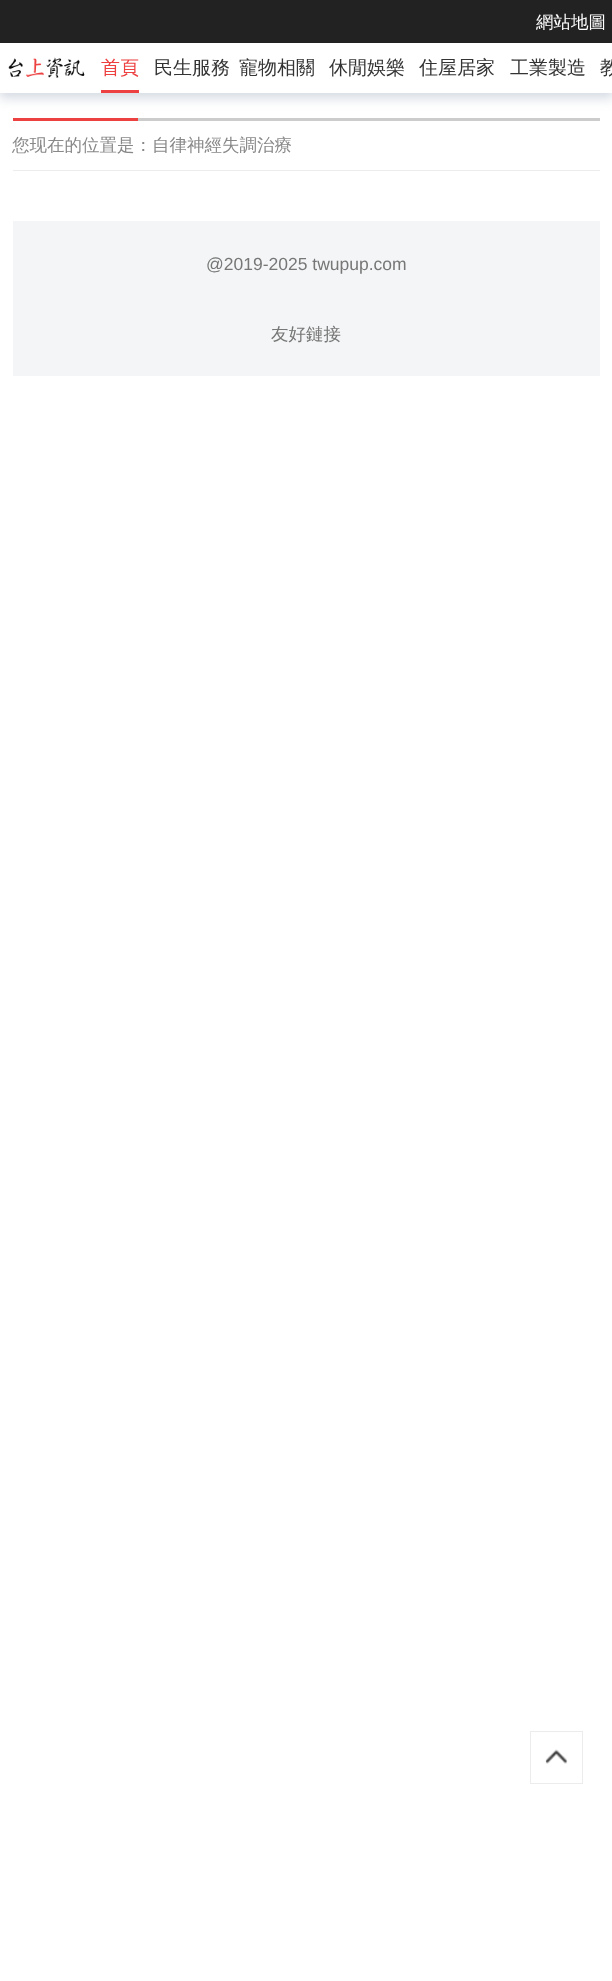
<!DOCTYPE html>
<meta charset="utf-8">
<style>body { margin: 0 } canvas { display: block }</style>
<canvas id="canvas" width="612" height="1981"></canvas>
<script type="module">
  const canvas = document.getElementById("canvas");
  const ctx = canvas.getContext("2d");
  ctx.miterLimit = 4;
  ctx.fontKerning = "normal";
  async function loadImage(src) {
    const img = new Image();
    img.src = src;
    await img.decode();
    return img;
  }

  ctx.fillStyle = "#ffffff";
  ctx.fillRect(0, 0, 612, 1981);
  ctx.fillStyle = "#222222";
  ctx.fillRect(0, 0, 612, 43);
  ctx.font = "500 17.5px WenQuanYi Zen Hei";
  ctx.fillStyle = "#ffffff";
  ctx.fillText("網站地圖", 536, 28);
  ctx.save();
  ctx.beginPath();
  ctx.rect(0, 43, 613, 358);
  ctx.clip();
  ctx.beginPath();
  ctx.moveTo(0, 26);
  ctx.lineTo(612, 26);
  ctx.lineTo(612, 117);
  ctx.lineTo(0, 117);
  ctx.closePath();
  ctx.moveTo(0, 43);
  ctx.lineTo(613, 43);
  ctx.lineTo(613, 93);
  ctx.lineTo(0, 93);
  ctx.closePath();
  ctx.clip("evenodd");
  ctx.fillStyle = "rgba(144, 161, 180, 0.4)";
  ctx.filter = "blur(6px)";
  ctx.beginPath();
  ctx.rect(-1, 45, 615, 53);
  ctx.fill();
  ctx.filter = "none";
  ctx.restore();
  ctx.drawImage(await loadImage("img1.png"), 8, 57, 77, 21);
  ctx.font = "500 19px WenQuanYi Zen Hei";
  ctx.fillStyle = "#ed4040";
  ctx.fillText("首頁", 101, 74);
  ctx.fillRect(101, 90, 38, 3);
  ctx.fillStyle = "#333333";
  ctx.fillText("民生服務", 154, 74);
  ctx.fillText("寵物相關", 239, 74);
  ctx.fillText("休閒娛樂", 329, 74);
  ctx.fillText("住屋居家", 419, 74);
  ctx.fillText("工業製造", 510, 74);
  ctx.fillText("教", 600, 74);
  ctx.fillStyle = "#cccccc";
  ctx.fillRect(138, 118, 462, 3);
  ctx.fillStyle = "#ececec";
  ctx.fillRect(13, 170, 587, 1);
  ctx.fillStyle = "#ed4040";
  ctx.fillRect(13, 118, 125, 3);
  ctx.font = "500 17.5px WenQuanYi Zen Hei";
  ctx.fillStyle = "#888888";
  ctx.fillText("您现在的位置是：自律神經失調治療", 12, 151);
  ctx.fillStyle = "#f4f5f6";
  ctx.fillRect(13, 221, 587, 155);
  ctx.font = "17.5px Liberation Sans";
  ctx.fillStyle = "#777777";
  ctx.fillText("@2019-2025 twupup.com", 206, 270);
  ctx.font = "500 17.5px WenQuanYi Zen Hei";
  ctx.fillText("友好鏈接", 271, 340);
  ctx.drawImage(await loadImage("img2.png"), 545, 1749, 23, 15);
  ctx.strokeStyle = "#ececec";
  ctx.strokeRect(530.5, 1731.5, 52, 52);
</script>
